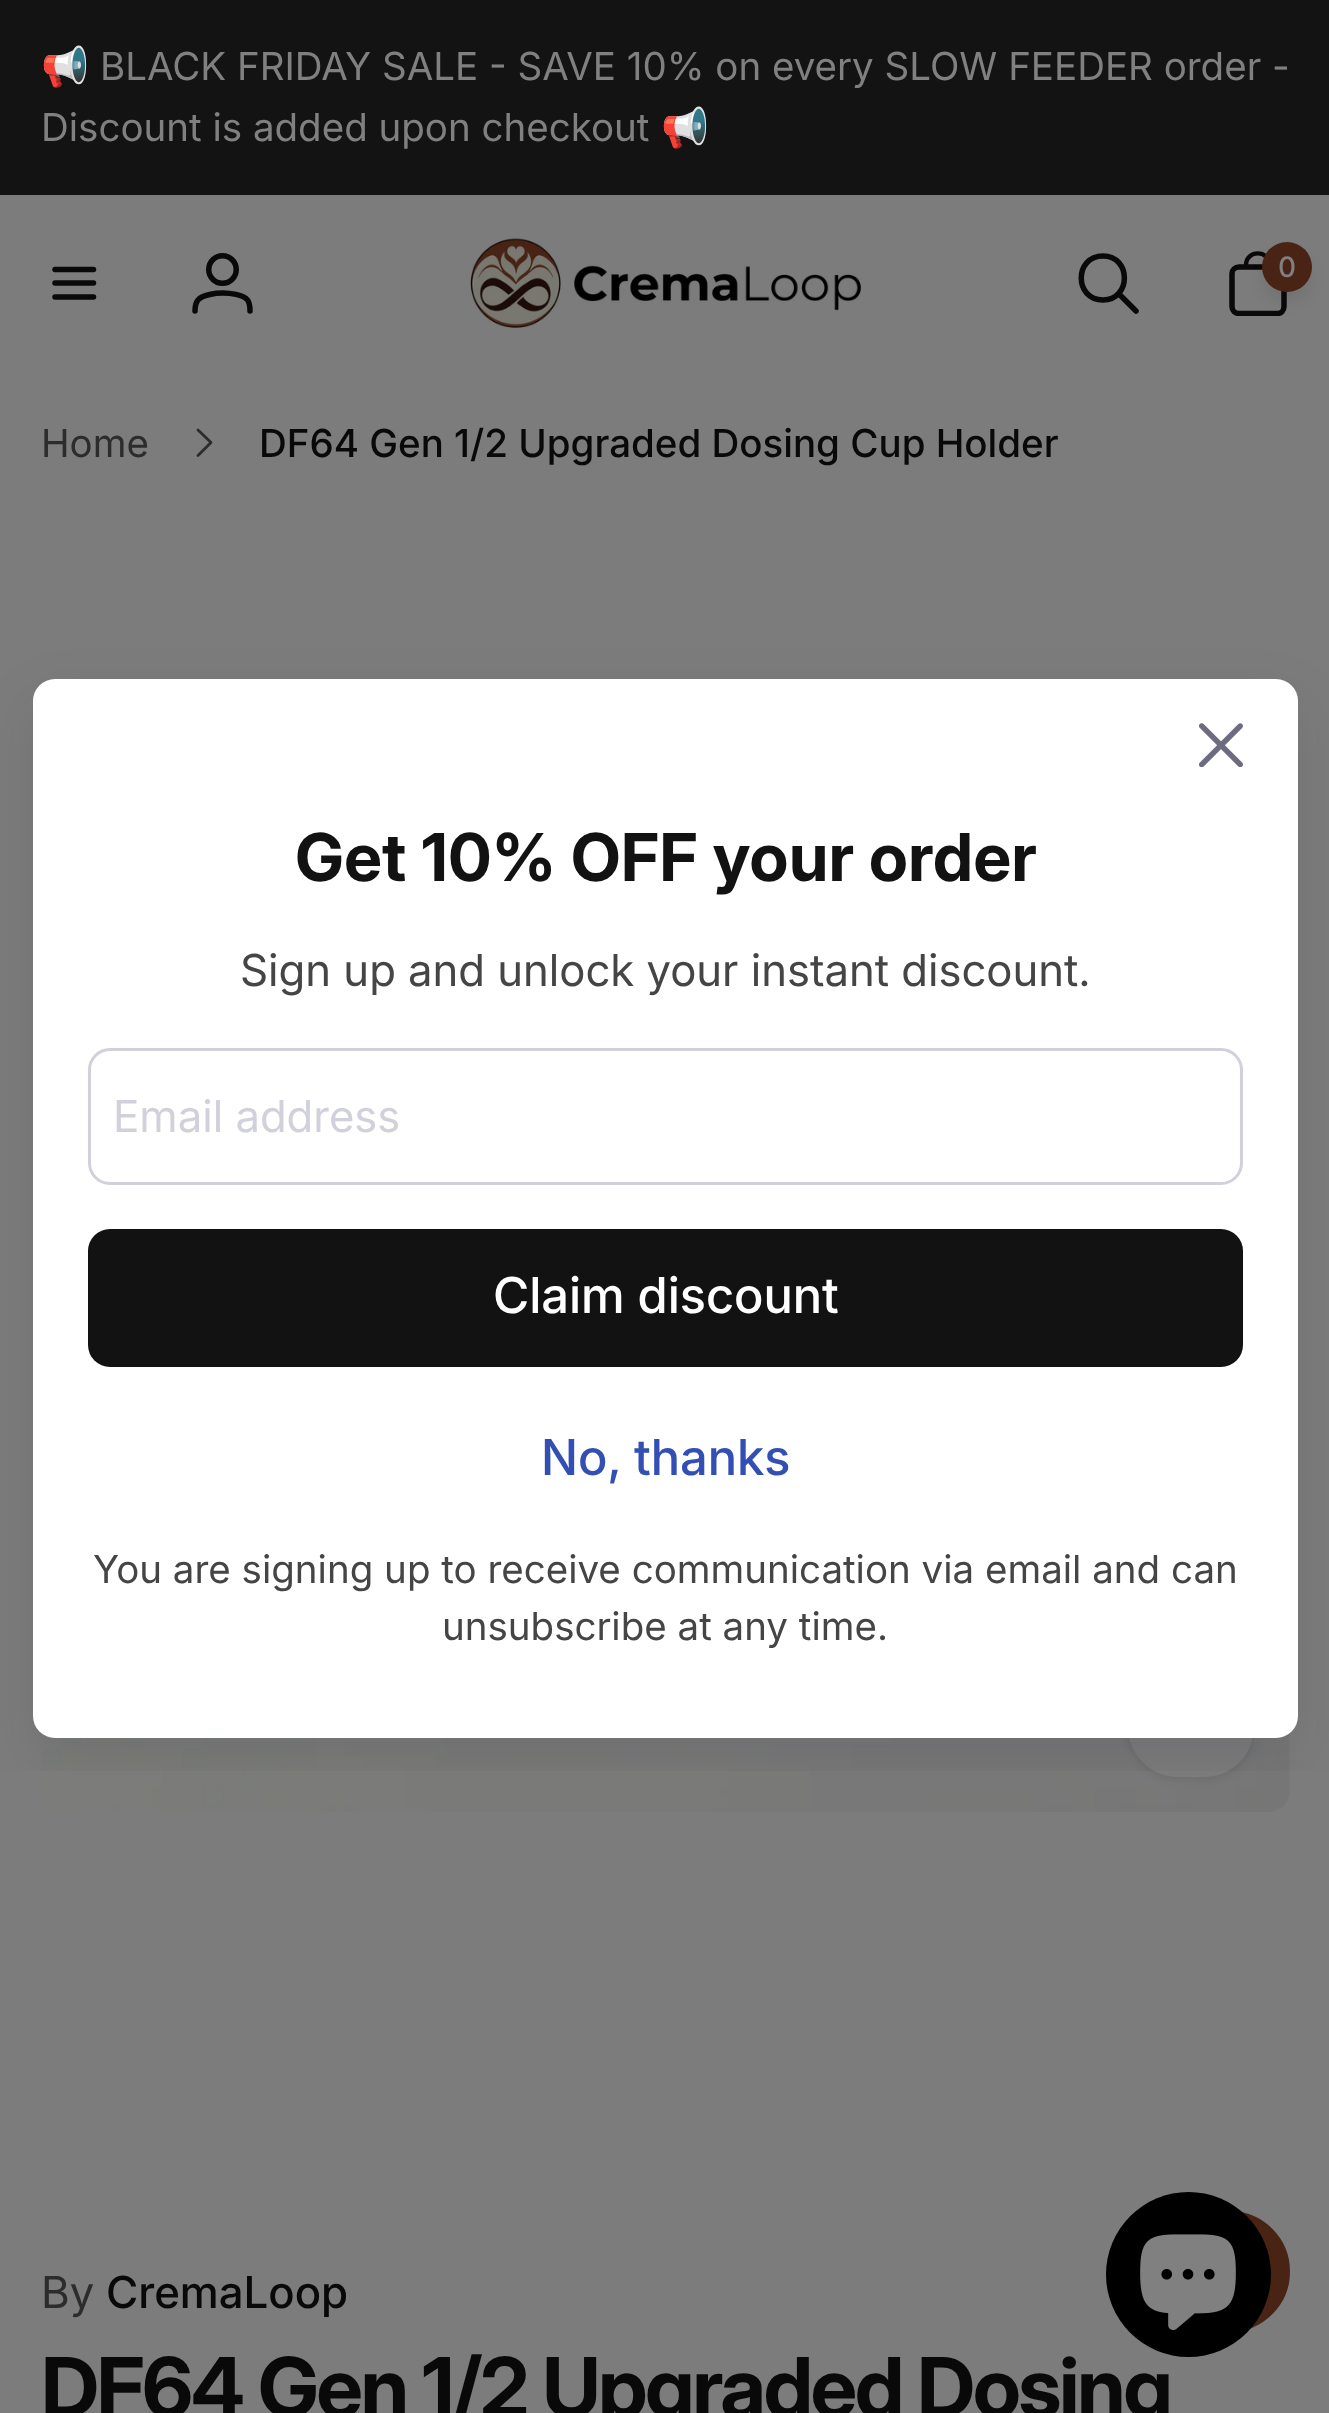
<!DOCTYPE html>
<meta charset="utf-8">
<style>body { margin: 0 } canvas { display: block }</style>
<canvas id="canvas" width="1329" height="2413"></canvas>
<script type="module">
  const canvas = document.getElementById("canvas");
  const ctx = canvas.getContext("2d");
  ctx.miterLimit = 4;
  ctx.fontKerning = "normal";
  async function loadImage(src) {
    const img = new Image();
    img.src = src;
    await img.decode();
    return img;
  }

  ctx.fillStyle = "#7c7c7c";
  ctx.fillRect(0, 0, 1329, 2413);
  ctx.fillStyle = "#131313";
  ctx.fillRect(0, 0, 1329, 195);
  ctx.font = "38.5px Noto Color Emoji";
  ctx.fillStyle = "#808080";
  ctx.fillText("📢", 41, 80);
  ctx.font = "38.5px Inter";
  ctx.fillText("BLACK FRIDAY SALE - SAVE 10% on every SLOW FEEDER order -", 100, 80);
  ctx.fillText("Discount is added upon checkout", 41, 141);
  ctx.font = "38.5px Noto Color Emoji";
  ctx.fillText("📢", 661, 141);
  ctx.beginPath();
  ctx.moveTo(55, 269.5);
  ctx.lineTo(93.5, 269.5);
  ctx.moveTo(55, 283);
  ctx.lineTo(93.5, 283);
  ctx.moveTo(55, 297);
  ctx.lineTo(93.5, 297);
  ctx.strokeStyle = "#090909";
  ctx.lineWidth = 5.5;
  ctx.lineCap = "round";
  ctx.stroke();
  ctx.beginPath();
  ctx.arc(222.5, 269.5, 13.75, 0, Math.PI * 2);
  ctx.stroke();
  ctx.beginPath();
  ctx.moveTo(223, 293);
  ctx.bezierCurveTo(229, 293, 243.5, 294.5, 247.5, 300);
  ctx.bezierCurveTo(250, 303, 250, 306.5, 250, 311);
  ctx.moveTo(223, 293);
  ctx.bezierCurveTo(216.5, 293, 202, 294.5, 198, 300);
  ctx.bezierCurveTo(195.5, 303, 195, 306.5, 195, 311);
  ctx.stroke();
  ctx.drawImage(await loadImage("img1.png"), 470, 238, 392, 90);
  ctx.beginPath();
  ctx.moveTo(1136, 311);
  ctx.lineTo(1118.5, 293.5);
  ctx.moveTo(1103, 300);
  ctx.bezierCurveTo(1131.5, 300, 1131.5, 256, 1103, 256);
  ctx.bezierCurveTo(1074, 256, 1074, 300, 1103, 300);
  ctx.closePath();
  ctx.lineJoin = "round";
  ctx.stroke();
  ctx.save();
  ctx.beginPath();
  ctx.rect(1224, 250, 66, 66);
  ctx.clip();
  ctx.beginPath();
  ctx.moveTo(1277.5, 267);
  ctx.lineTo(1239, 267);
  ctx.bezierCurveTo(1235, 267, 1232, 270, 1232, 273.5);
  ctx.lineTo(1232, 306.5);
  ctx.bezierCurveTo(1232, 310.5, 1235, 313.5, 1239, 313.5);
  ctx.lineTo(1277.5, 313.5);
  ctx.bezierCurveTo(1281, 313.5, 1284, 310.5, 1284, 306.5);
  ctx.lineTo(1284, 273.5);
  ctx.bezierCurveTo(1284, 270, 1281, 267, 1277.5, 267);
  ctx.closePath();
  ctx.lineCap = "butt";
  ctx.lineJoin = "miter";
  ctx.stroke();
  ctx.restore();
  ctx.beginPath();
  ctx.moveTo(1246, 265);
  ctx.bezierCurveTo(1246, 249.5, 1269.5, 249.5, 1269.5, 265);
  ctx.lineWidth = 4.4;
  ctx.stroke();
  ctx.fillStyle = "rgba(9, 9, 9, 0.1)";
  ctx.filter = "blur(8px)";
  ctx.beginPath();
  ctx.roundRect(1265, 256, 44, 44, 22);
  ctx.fill();
  ctx.filter = "none";
  ctx.fillStyle = "#492414";
  ctx.beginPath();
  ctx.arc(1287, 267, 25, 0, Math.PI * 2);
  ctx.fill();
  ctx.font = "500 28px Inter";
  ctx.fillStyle = "#808080";
  ctx.fillText("0", 1278, 277);
  ctx.font = "38.5px Inter";
  ctx.fillStyle = "#2c2c2c";
  ctx.fillText("Home", 41, 457);
  ctx.beginPath();
  ctx.moveTo(198, 430);
  ctx.lineTo(211, 442.5);
  ctx.lineTo(198, 455.5);
  ctx.strokeStyle = "#2c2c2c";
  ctx.lineWidth = 2.8;
  ctx.stroke();
  ctx.font = "500 38.5px Inter";
  ctx.fillStyle = "#090909";
  ctx.fillText("DF64 Gen 1/2 Upgraded Dosing Cup Holder", 259, 457);
  ctx.drawImage(await loadImage("img2.png"), 41, 1733, 1249, 79);
  ctx.fillStyle = "rgba(9, 9, 9, 0.1)";
  ctx.filter = "blur(4px)";
  ctx.beginPath();
  ctx.roundRect(1128, 1653, 126, 126, 50);
  ctx.fill();
  ctx.filter = "none";
  ctx.fillStyle = "#7c7c7c";
  ctx.beginPath();
  ctx.roundRect(1128, 1650, 126, 127, 50);
  ctx.fill();
  ctx.font = "44px 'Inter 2'";
  ctx.fillStyle = "#2c2c2c";
  ctx.fillText("By", 41, 2308);
  ctx.font = "500 44px 'Inter 2'";
  ctx.fillStyle = "#090909";
  ctx.fillText("CremaLoop", 106, 2308);
  ctx.letterSpacing = "-2.5px";
  ctx.font = "bold 82.5px Inter";
  ctx.fillText("DF64 Gen 1/2 Upgraded Dosing", 41, 2417);
  ctx.fillStyle = "#492414";
  ctx.beginPath();
  ctx.arc(1229.5, 2271.5, 59, 0, Math.PI * 2);
  ctx.fill();
  ctx.strokeStyle = "#492414";
  ctx.lineWidth = 3;
  ctx.stroke();
  ctx.save();
  ctx.beginPath();
  ctx.rect(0, 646, 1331, 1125);
  ctx.clip();
  ctx.fillStyle = "rgba(18, 17, 39, 0.1)";
  ctx.filter = "blur(27.5px)";
  ctx.beginPath();
  ctx.roundRect(33, 701, 1265, 1059, 22);
  ctx.fill();
  ctx.filter = "none";
  ctx.restore();
  ctx.fillStyle = "#ffffff";
  ctx.beginPath();
  ctx.roundRect(33, 679, 1265, 1059, 22);
  ctx.fill();
  ctx.drawImage(await loadImage("img3.png"), 1199, 723, 44, 44);
  ctx.letterSpacing = "0px";
  ctx.font = "bold 66px 'Inter 2'";
  ctx.fillStyle = "#121212";
  ctx.fillText("Get 10% OFF your order", 295, 881);
  ctx.font = "44px 'Inter 2'";
  ctx.fillStyle = "#454545";
  ctx.fillText("Sign up and unlock your instant discount.", 240, 986);
  ctx.beginPath();
  ctx.roundRect(89.5, 1049.5, 1152, 134, 20.5);
  ctx.strokeStyle = "#d1d1db";
  ctx.lineJoin = "miter";
  ctx.stroke();
  ctx.fillStyle = "#d1d1db";
  ctx.fillText("Email address", 113, 1132);
  ctx.fillStyle = "#121212";
  ctx.beginPath();
  ctx.roundRect(88, 1229, 1155, 138, 22);
  ctx.fill();
  ctx.font = "500 49.5px 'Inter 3'";
  ctx.fillStyle = "#ffffff";
  ctx.fillText("Claim discount", 493, 1313);
  ctx.fillStyle = "#334fb4";
  ctx.fillText("No, thanks", 541, 1475);
  ctx.font = "38.5px Inter";
  ctx.fillStyle = "#454545";
  ctx.fillText("You are signing up to receive communication via email and can", 93, 1583);
  ctx.fillText("unsubscribe at any time.", 442, 1640);
  ctx.fillStyle = "#000000";
  ctx.beginPath();
  ctx.arc(1188.5, 2274.5, 82.5, 0, Math.PI * 2);
  ctx.fill();
  ctx.drawImage(await loadImage("img4.png"), 1140, 2234, 96, 97);
</script>
